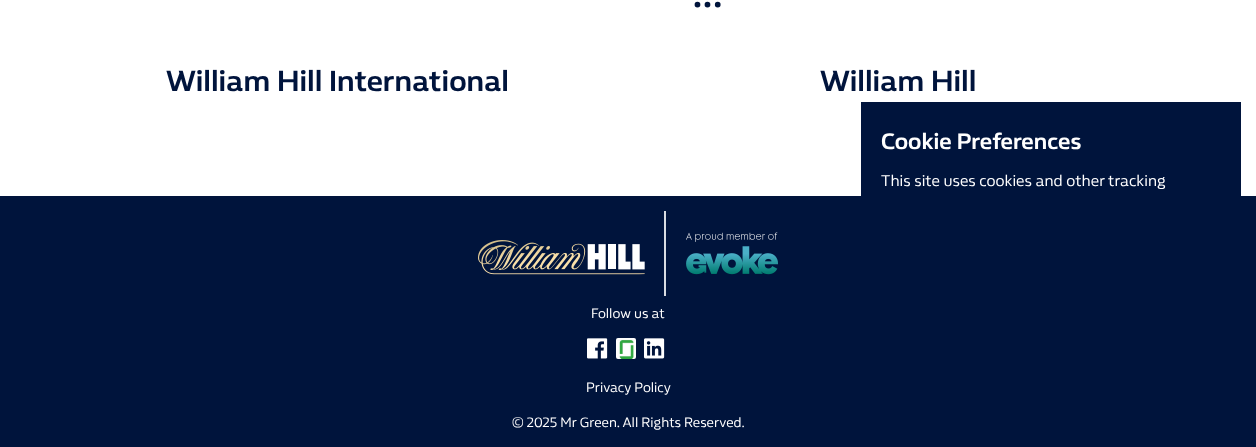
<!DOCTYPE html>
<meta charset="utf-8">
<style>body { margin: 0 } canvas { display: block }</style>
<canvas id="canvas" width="1256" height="447"></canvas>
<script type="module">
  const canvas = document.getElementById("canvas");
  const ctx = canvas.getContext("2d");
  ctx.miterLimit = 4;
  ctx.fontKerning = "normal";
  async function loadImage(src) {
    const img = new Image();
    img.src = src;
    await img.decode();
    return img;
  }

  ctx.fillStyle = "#ffffff";
  ctx.fillRect(0, 0, 1256, 447);
  ctx.font = "bold 36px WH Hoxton";
  ctx.fillStyle = "#00143c";
  ctx.fillText("...", 693, 7);
  ctx.font = "bold 30px WH Hoxton";
  ctx.fillText("William Hill International", 166, 91);
  ctx.fillText("William Hill", 820, 91);
  ctx.fillRect(861, 102, 380, 94);
  ctx.font = "bold 23px WH Hoxton";
  ctx.fillStyle = "#ffffff";
  ctx.fillText("Cookie Preferences", 881, 149);
  ctx.font = "16px WH Hoxton";
  ctx.fillText("This site uses cookies and other tracking", 881, 186);
  ctx.fillStyle = "#00143c";
  ctx.fillRect(0, 196, 1256, 251);
  ctx.drawImage(await loadImage("img1.png"), 478, 211, 300, 85);
  ctx.font = "14px WH Hoxton";
  ctx.fillStyle = "#ffffff";
  ctx.fillText("Follow us at", 591, 318);
  ctx.drawImage(await loadImage("img2.png"), 587, 338, 21, 21);
  ctx.drawImage(await loadImage("img3.png"), 616, 338, 20, 21);
  ctx.drawImage(await loadImage("img4.png"), 644, 338, 21, 21);
  ctx.fillText("Privacy Policy", 586, 392);
  ctx.fillText("© 2025 Mr Green. All Rights Reserved.", 512, 427);
</script>
